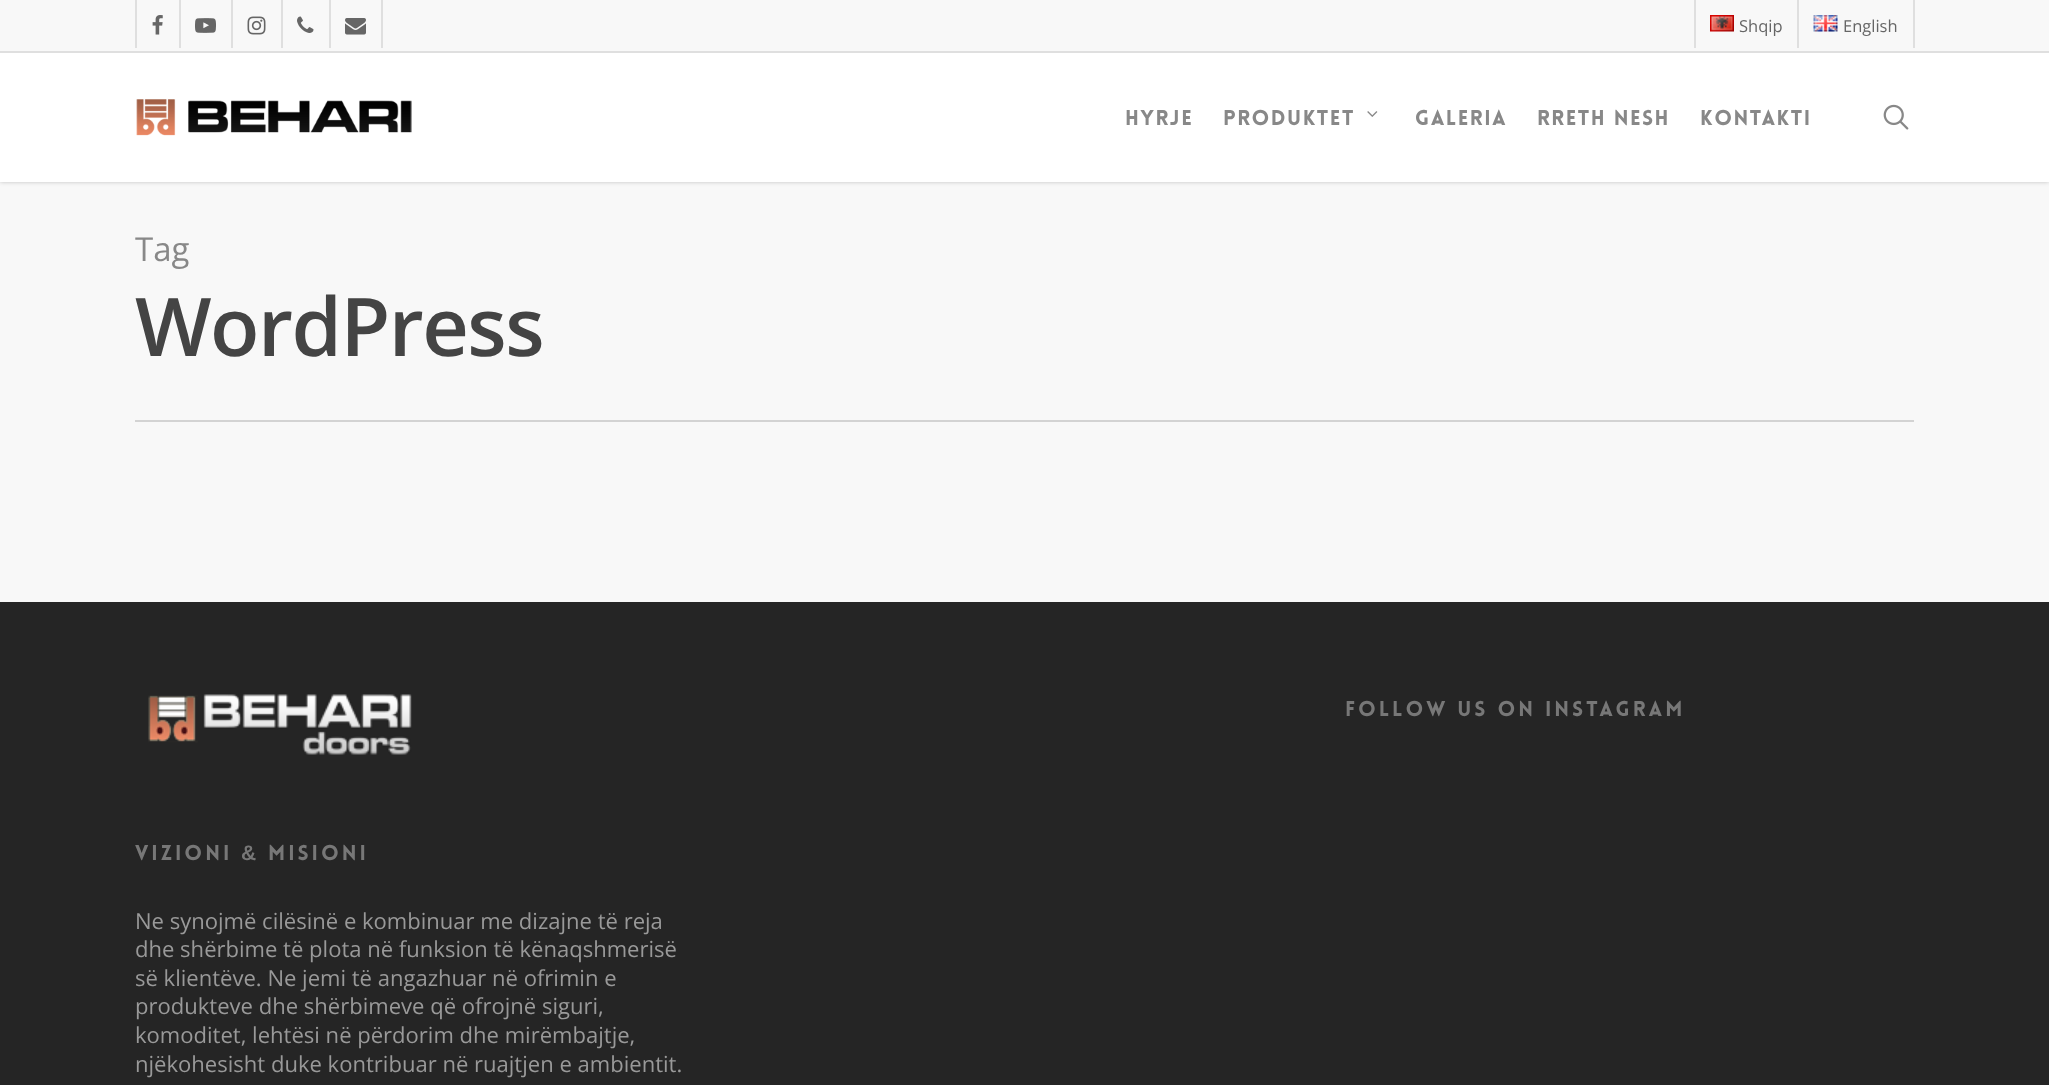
<!DOCTYPE html>
<meta charset="utf-8">
<style>body { margin: 0 } canvas { display: block }</style>
<canvas id="canvas" width="2049" height="1085"></canvas>
<script type="module">
  const canvas = document.getElementById("canvas");
  const ctx = canvas.getContext("2d");
  ctx.miterLimit = 4;
  ctx.fontKerning = "normal";
  async function loadImage(src) {
    const img = new Image();
    img.src = src;
    await img.decode();
    return img;
  }

  ctx.fillStyle = "#f8f8f8";
  ctx.fillRect(0, 0, 2049, 1085);
  ctx.fillStyle = "rgba(0, 0, 0, 0.22)";
  ctx.filter = "blur(2px)";
  ctx.beginPath();
  ctx.rect(0, 0, 2049, 182);
  ctx.fill();
  ctx.filter = "none";
  ctx.fillStyle = "#ffffff";
  ctx.fillRect(0, 53, 2049, 129);
  ctx.fillStyle = "#f8f8f8";
  ctx.fillRect(0, 0, 2049, 51);
  ctx.fillStyle = "#dfdfdf";
  ctx.fillRect(0, 51, 2049, 2);
  ctx.fillRect(135, 0, 2, 48);
  ctx.drawImage(await loadImage("img1.png"), 152, 15, 11, 20);
  ctx.fillRect(179, 0, 2, 48);
  ctx.drawImage(await loadImage("img2.png"), 195, 18, 21, 15);
  ctx.fillRect(231, 0, 2, 48);
  ctx.drawImage(await loadImage("img3.png"), 247, 16, 19, 19);
  ctx.fillRect(281, 0, 2, 48);
  ctx.drawImage(await loadImage("img4.png"), 297, 16, 17, 17);
  ctx.fillRect(381, 0, 2, 48);
  ctx.fillRect(329, 0, 2, 48);
  ctx.drawImage(await loadImage("img5.png"), 345, 18, 21, 17);
  ctx.fillRect(1694, 0, 2, 48);
  ctx.drawImage(await loadImage("img6.png"), 1710, 15, 24, 17);
  ctx.font = "16.5px Open Sans";
  ctx.fillStyle = "#666666";
  ctx.fillText("Shqip", 1739, 32);
  ctx.fillStyle = "#dfdfdf";
  ctx.fillRect(1913, 0, 2, 48);
  ctx.fillRect(1797, 0, 2, 48);
  ctx.drawImage(await loadImage("img7.png"), 1813, 15, 25, 17);
  ctx.fillStyle = "#666666";
  ctx.fillText("English", 1843, 32);
  ctx.drawImage(await loadImage("img8.png"), 136, 99, 276, 37);
  ctx.letterSpacing = "1.5px";
  ctx.font = "900 21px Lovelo";
  ctx.fillStyle = "#888888";
  ctx.fillText("Hyrje", 1125, 125);
  ctx.fillText("Produktet", 1223, 125);
  ctx.drawImage(await loadImage("img9.png"), 1367, 111, 11, 6);
  ctx.fillText("Galeria", 1415, 125);
  ctx.fillText("Rreth nesh", 1537, 125);
  ctx.fillText("Kontakti", 1700, 125);
  ctx.drawImage(await loadImage("img10.png"), 1883, 104, 26, 26);
  ctx.fillStyle = "#d3d3d3";
  ctx.fillRect(135, 420, 1779, 2);
  ctx.letterSpacing = "0px";
  ctx.font = "33px Open Sans";
  ctx.fillStyle = "#888888";
  ctx.fillText("Tag", 135, 261);
  ctx.letterSpacing = "-1.5px";
  ctx.font = "600 81px Open Sans";
  ctx.fillStyle = "#444444";
  ctx.fillText("WordPress", 135, 356);
  ctx.fillStyle = "#252525";
  ctx.fillRect(0, 602, 2049, 483);
  ctx.letterSpacing = "3px";
  ctx.font = "900 21px Lovelo";
  ctx.fillStyle = "#777777";
  ctx.fillText("Follow us on Instagram", 1345, 716);
  ctx.drawImage(await loadImage("img11.png"), 148, 694, 264, 61);
  ctx.fillText("Vizioni", 135, 860);
  ctx.font = "bold 21px Liberation Sans";
  ctx.fillText("&", 241, 860);
  ctx.font = "900 21px Lovelo";
  ctx.fillText("Misioni", 268, 860);
  ctx.letterSpacing = "0px";
  ctx.font = "22.05px Open Sans";
  ctx.fillStyle = "#999999";
  ctx.fillText("Ne synojmë cilësinë e kombinuar me dizajne të reja", 135, 929);
  ctx.fillText("dhe shërbime të plota në funksion të kënaqshmerisë", 135, 957);
  ctx.fillText("së klientëve. Ne jemi të angazhuar në ofrimin e", 135, 986);
  ctx.fillText("produkteve dhe shërbimeve që ofrojnë siguri,", 135, 1014);
  ctx.fillText("komoditet, lehtësi në përdorim dhe mirëmbajtje,", 135, 1043);
  ctx.fillText("njëkohesisht duke kontribuar në ruajtjen e ambientit.", 135, 1072);
</script>
